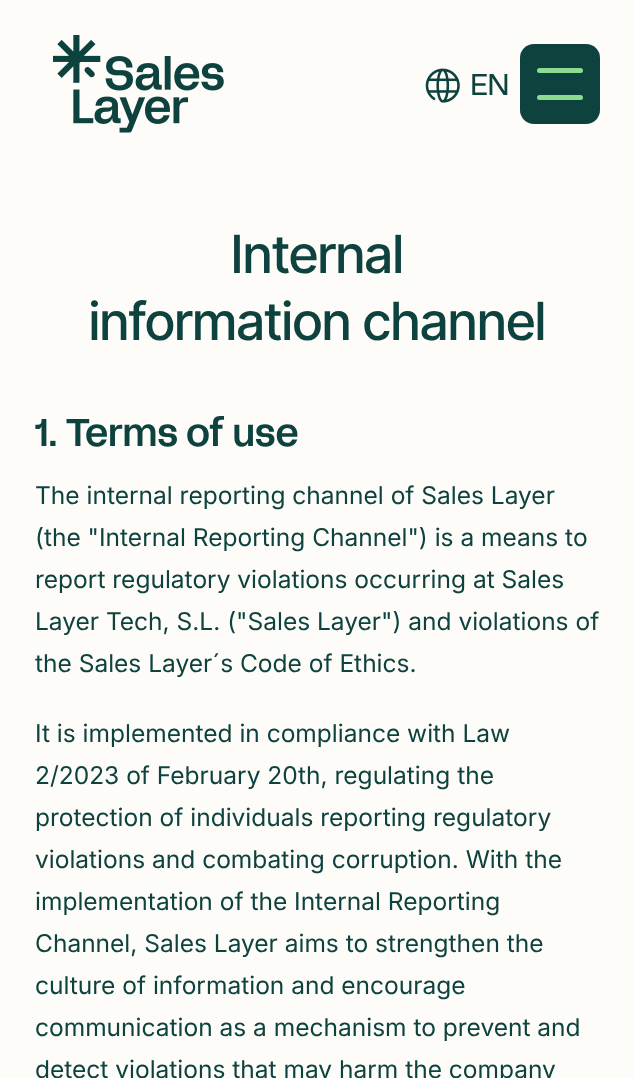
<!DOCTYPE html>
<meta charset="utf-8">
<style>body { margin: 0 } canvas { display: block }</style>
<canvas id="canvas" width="634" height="1078"></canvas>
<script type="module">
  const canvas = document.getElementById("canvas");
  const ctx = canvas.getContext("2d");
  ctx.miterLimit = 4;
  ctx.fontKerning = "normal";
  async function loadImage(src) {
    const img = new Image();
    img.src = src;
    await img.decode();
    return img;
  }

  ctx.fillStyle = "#fefcf8";
  ctx.fillRect(0, 0, 634, 1078);
  ctx.drawImage(await loadImage("img1.png"), 53, 35, 171, 98);
  ctx.drawImage(await loadImage("img2.png"), 425, 68, 35, 35);
  ctx.font = "30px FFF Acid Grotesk";
  ctx.fillStyle = "#0d423e";
  ctx.fillText("EN", 470, 95);
  ctx.beginPath();
  ctx.roundRect(520, 44, 80, 80, 14);
  ctx.fill();
  ctx.fillStyle = "#8cdb90";
  ctx.beginPath();
  ctx.roundRect(537, 68, 46, 5, 2.5);
  ctx.fill();
  ctx.beginPath();
  ctx.roundRect(537, 95, 46, 5, 2.5);
  ctx.fill();
  ctx.font = "500 52.5px Inter Tight";
  ctx.fillStyle = "#0d423e";
  ctx.fillText("Internal", 231, 273);
  ctx.fillText("information channel", 89, 340);
  ctx.font = "500 38.5px FFF Acid Grotesk";
  ctx.fillText("1. Terms of use", 35, 446);
  ctx.font = "24.5px Inter";
  ctx.fillText("The internal reporting channel of Sales Layer", 35, 504);
  ctx.fillText("(the \"Internal Reporting Channel\") is a means to", 35, 546);
  ctx.fillText("report regulatory violations occurring at Sales", 35, 588);
  ctx.fillText("Layer Tech, S.L. (\"Sales Layer\") and violations of", 35, 630);
  ctx.fillText("the Sales Layer´s Code of Ethics.", 35, 672);
  ctx.fillText("It is implemented in compliance with Law", 35, 742);
  ctx.fillText("2/2023 of February 20th, regulating the", 35, 784);
  ctx.fillText("protection of individuals reporting regulatory", 35, 826);
  ctx.fillText("violations and combating corruption. With the", 35, 868);
  ctx.fillText("implementation of the Internal Reporting", 35, 910);
  ctx.fillText("Channel, Sales Layer aims to strengthen the", 35, 952);
  ctx.fillText("culture of information and encourage", 35, 994);
  ctx.fillText("communication as a mechanism to prevent and", 35, 1036);
  ctx.fillText("detect violations that may harm the company", 35, 1078);
</script>
